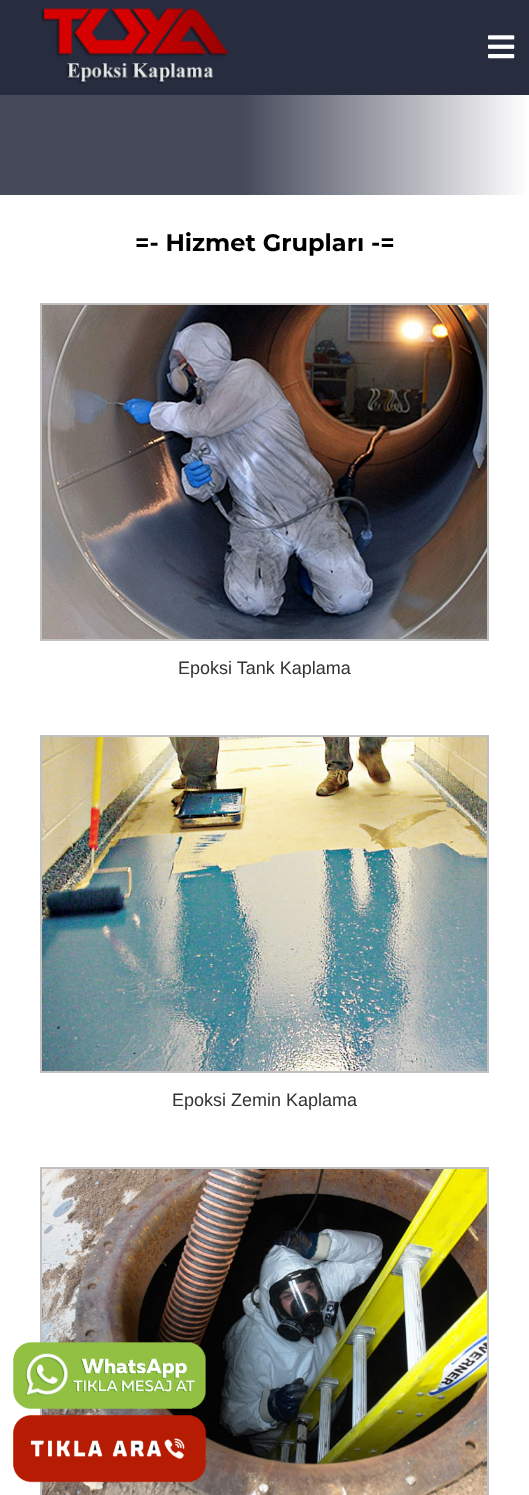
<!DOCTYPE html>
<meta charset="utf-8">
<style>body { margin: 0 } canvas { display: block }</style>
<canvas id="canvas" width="529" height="1495"></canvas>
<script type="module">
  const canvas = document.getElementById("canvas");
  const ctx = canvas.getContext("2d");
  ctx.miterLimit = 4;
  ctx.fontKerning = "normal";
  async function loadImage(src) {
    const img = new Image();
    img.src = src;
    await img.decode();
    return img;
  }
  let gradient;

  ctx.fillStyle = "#ffffff";
  ctx.fillRect(0, 0, 529, 1495);
  ctx.fillStyle = "#272c3f";
  ctx.fillRect(0, 0, 529, 95);
  ctx.drawImage(await loadImage("img1.png"), 41, 7, 188, 77);
  ctx.drawImage(await loadImage("img2.png"), 488, 35, 27, 24);
  gradient = ctx.createLinearGradient(0, 145, 529, 145);
  gradient.addColorStop(0.08, "#464a5b");
  gradient.addColorStop(0.46, "#464a5b");
  gradient.addColorStop(0.95, "#efeff1");
  gradient.addColorStop(1, "#ffffff");
  ctx.fillStyle = gradient;
  ctx.fillRect(0, 95, 525, 100);
  ctx.font = "bold 24px Montserrat";
  ctx.fillStyle = "#000000";
  ctx.fillText("=- Hizmet Grupları -=", 135, 251);
  ctx.strokeStyle = "#c0c0c0";
  ctx.lineWidth = 2;
  ctx.strokeRect(41, 304, 447, 336);
  ctx.drawImage(await loadImage("img3.png"), 42, 305, 445, 334);
  ctx.font = "18px Liberation Sans";
  ctx.fillStyle = "#333333";
  ctx.fillText("Epoksi Tank Kaplama", 178, 674);
  ctx.strokeRect(41, 736, 447, 336);
  ctx.drawImage(await loadImage("img4.png"), 42, 737, 445, 334);
  ctx.fillText("Epoksi Zemin Kaplama", 172, 1106);
  ctx.strokeRect(41, 1168, 447, 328);
  ctx.drawImage(await loadImage("img5.png"), 42, 1169, 445, 326);
  ctx.drawImage(await loadImage("img6.png"), 13, 1342, 193, 67);
  ctx.drawImage(await loadImage("img7.png"), 13, 1414, 194, 69);
</script>
